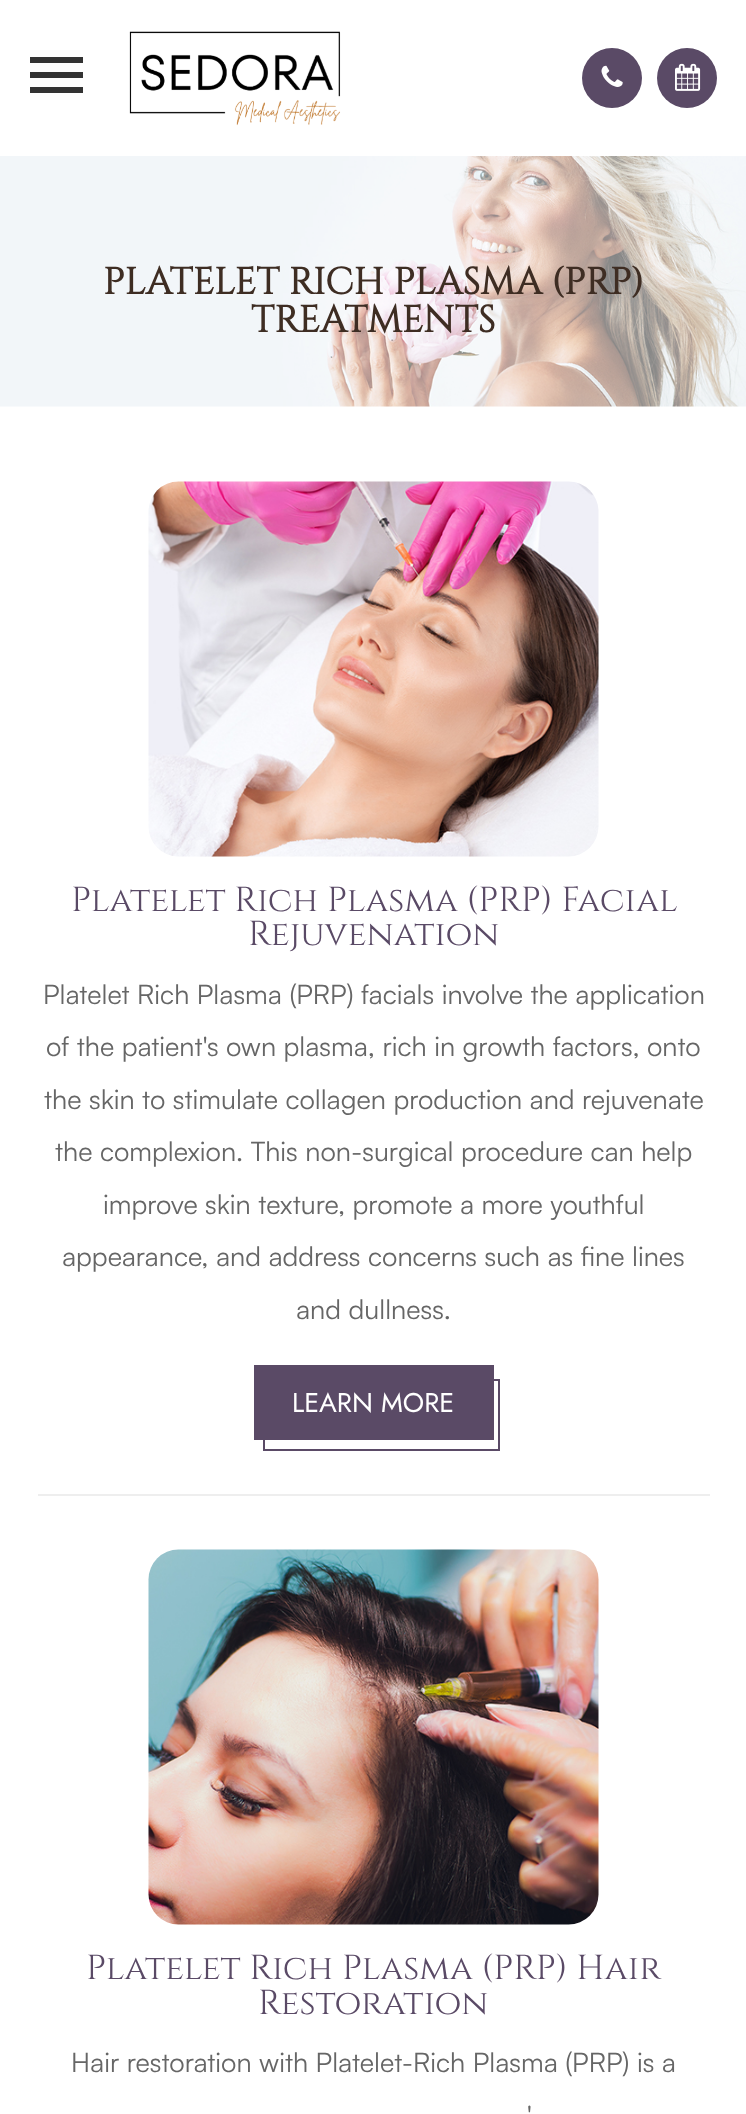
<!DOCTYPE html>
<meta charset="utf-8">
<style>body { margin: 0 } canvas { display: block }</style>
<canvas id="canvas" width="746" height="2114"></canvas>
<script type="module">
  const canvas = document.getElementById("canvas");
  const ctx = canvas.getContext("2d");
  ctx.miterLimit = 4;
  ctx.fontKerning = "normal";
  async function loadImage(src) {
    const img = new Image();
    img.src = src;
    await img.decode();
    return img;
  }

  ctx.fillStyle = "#ffffff";
  ctx.fillRect(0, 0, 746, 2114);
  ctx.fillStyle = "#333333";
  ctx.fillRect(30, 87, 53, 6);
  ctx.fillRect(30, 57, 53, 6);
  ctx.fillRect(30, 72, 53, 6);
  ctx.drawImage(await loadImage("img1.png"), 129, 31, 212, 95);
  ctx.fillStyle = "#5a4a66";
  ctx.beginPath();
  ctx.arc(612, 78, 30, 0, Math.PI * 2);
  ctx.fill();
  ctx.drawImage(await loadImage("img2.png"), 601, 65, 22, 22);
  ctx.beginPath();
  ctx.arc(687, 78, 30, 0, Math.PI * 2);
  ctx.fill();
  ctx.drawImage(await loadImage("img3.png"), 675, 63, 26, 28);
  ctx.drawImage(await loadImage("img4.png"), 0, 156, 746, 251);
  ctx.font = "bold 37.5px Cinzel";
  ctx.fillStyle = "#3e2d23";
  ctx.fillText("PLATELET RICH PLASMA (PRP)", 103, 294);
  ctx.fillText("TREATMENTS", 251, 332);
  ctx.fillStyle = "#eeeeee";
  ctx.fillRect(38, 1494, 672, 2);
  ctx.drawImage(await loadImage("img5.png"), 148, 481, 451, 376);
  ctx.font = "34.75px Cinzel";
  ctx.fillStyle = "#5a4a66";
  ctx.fillText("Platelet Rich Plasma (PRP) Facial", 71, 911);
  ctx.fillText("Rejuvenation", 248, 945);
  ctx.font = "27px Satoshi";
  ctx.fillStyle = "#666666";
  ctx.fillText("Platelet Rich Plasma (PRP) facials involve the application", 43, 1004);
  ctx.fillText("of the patient's own plasma, rich in growth factors, onto", 46, 1056);
  ctx.fillText("the skin to stimulate collagen production and rejuvenate", 44, 1109);
  ctx.fillText("the complexion. This non-surgical procedure can help", 55, 1161);
  ctx.fillText("improve skin texture, promote a more youthful", 103, 1214);
  ctx.fillText("appearance, and address concerns such as fine lines", 62, 1266);
  ctx.fillText("and dullness.", 296, 1319);
  ctx.fillStyle = "#5a4a66";
  ctx.fillRect(254, 1365, 240, 75);
  ctx.strokeStyle = "#5a4a66";
  ctx.lineWidth = 2;
  ctx.strokeRect(264, 1380, 235, 70);
  ctx.font = "27px Jost";
  ctx.fillStyle = "#ffffff";
  ctx.fillText("LEARN MORE", 292, 1412);
  ctx.drawImage(await loadImage("img6.png"), 148, 1549, 451, 376);
  ctx.font = "34.75px Cinzel";
  ctx.fillStyle = "#5a4a66";
  ctx.fillText("Platelet Rich Plasma (PRP) Hair", 86, 1979);
  ctx.fillText("Restoration", 258, 2014);
  ctx.font = "27px Satoshi";
  ctx.fillStyle = "#666666";
  ctx.fillText("Hair restoration with Platelet-Rich Plasma (PRP) is a", 71, 2072);
  ctx.fillText("'", 527, 2125);
</script>
